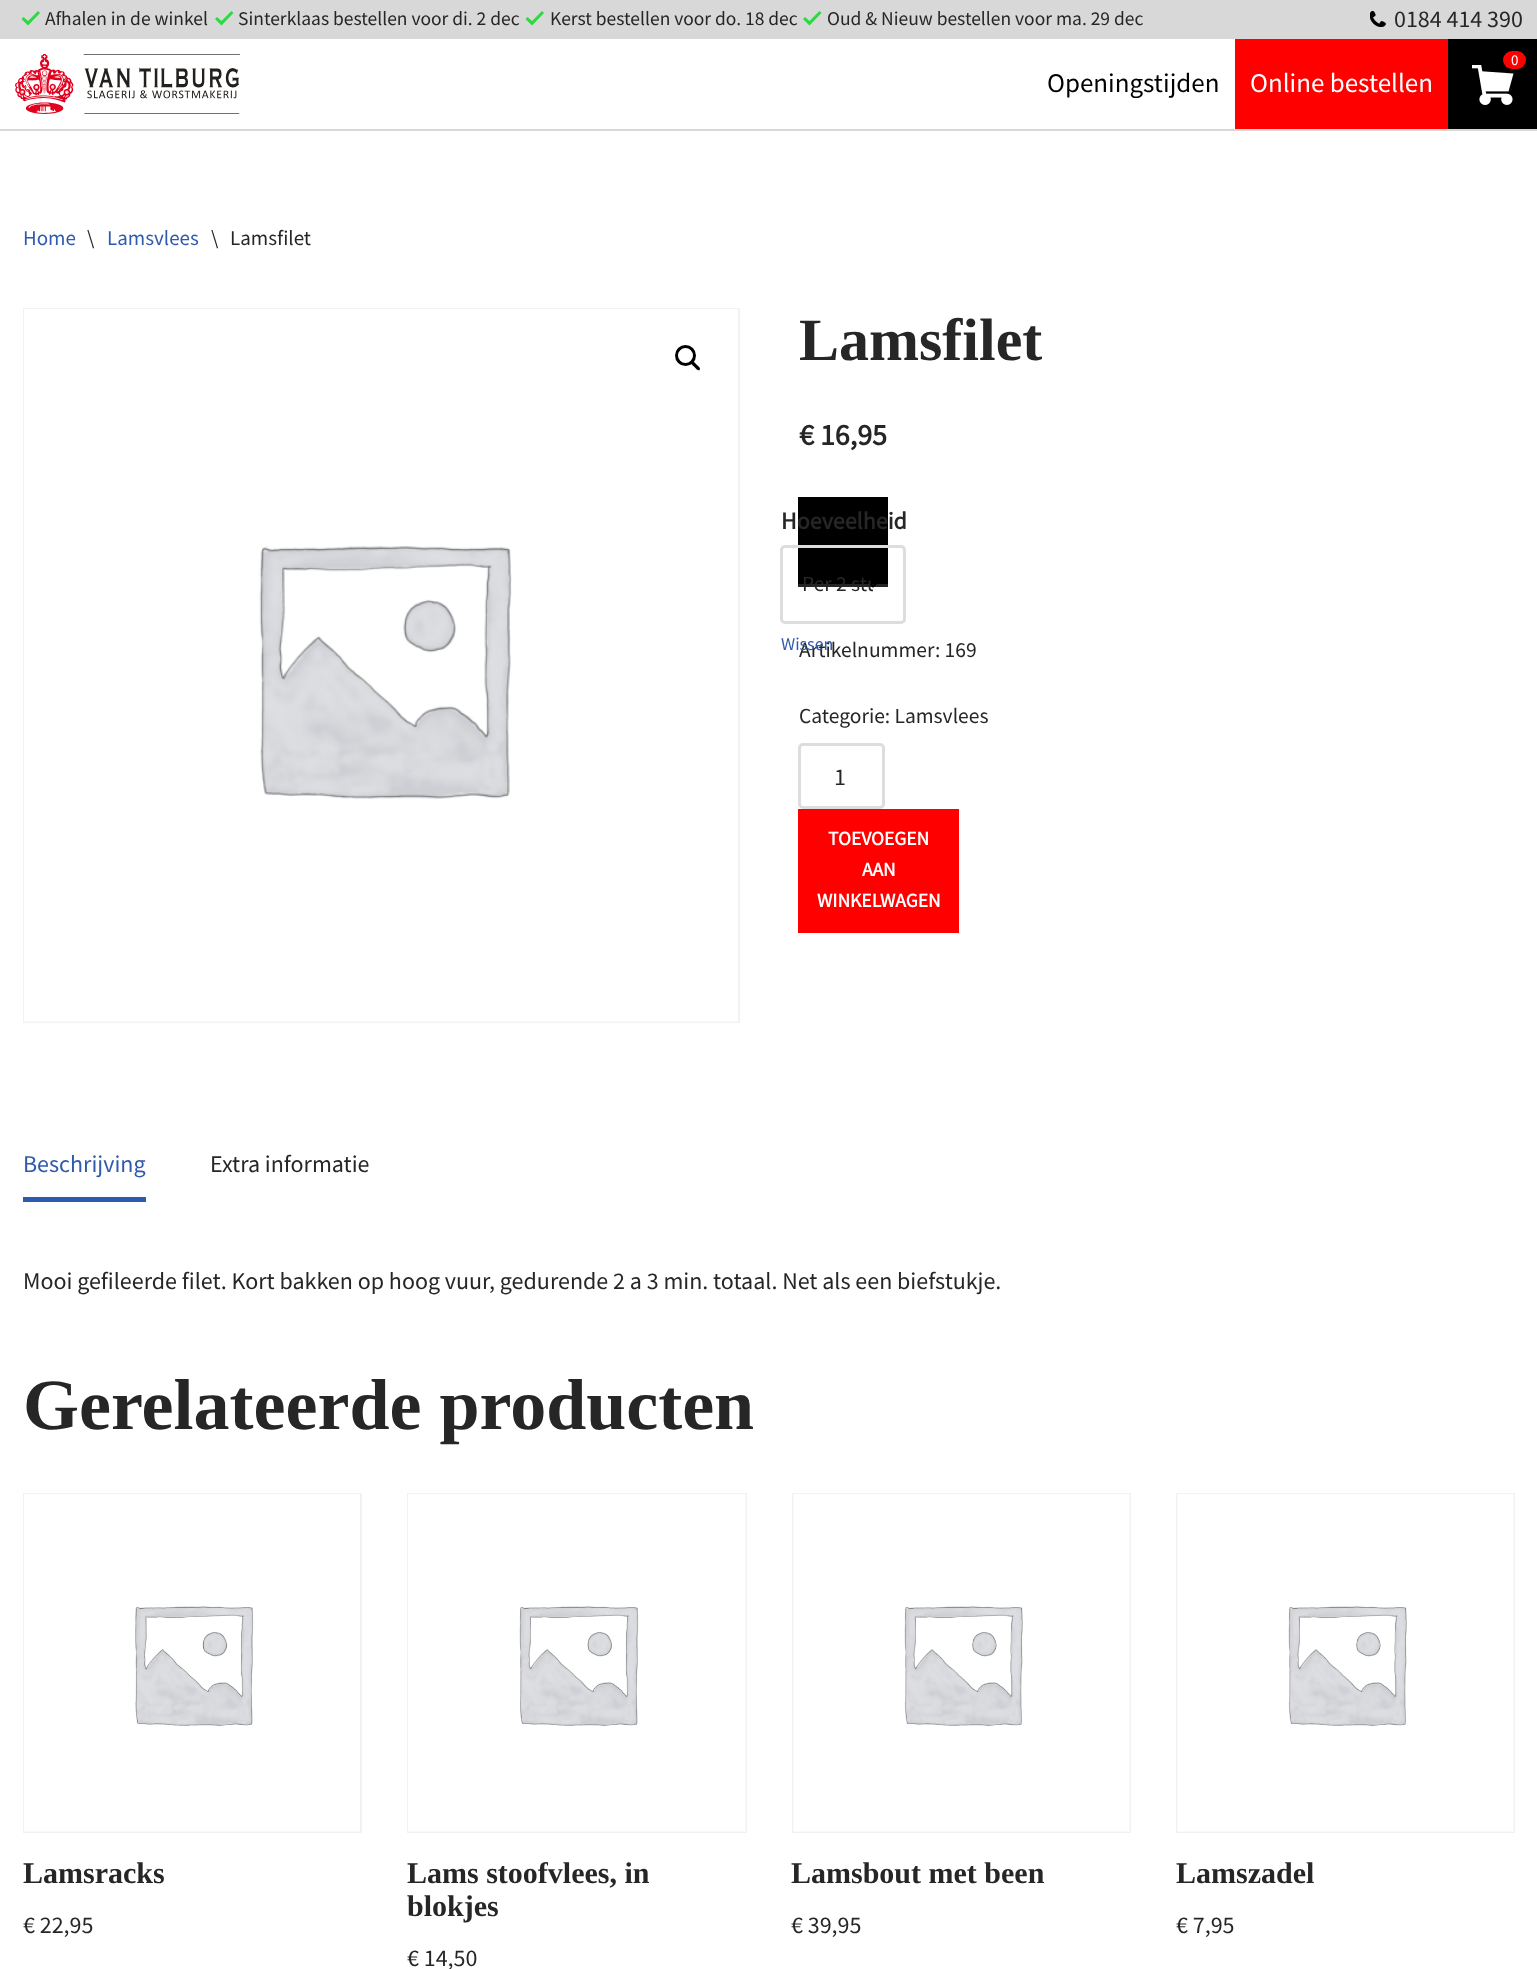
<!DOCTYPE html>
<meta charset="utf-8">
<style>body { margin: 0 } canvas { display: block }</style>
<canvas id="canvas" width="1537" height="1969"></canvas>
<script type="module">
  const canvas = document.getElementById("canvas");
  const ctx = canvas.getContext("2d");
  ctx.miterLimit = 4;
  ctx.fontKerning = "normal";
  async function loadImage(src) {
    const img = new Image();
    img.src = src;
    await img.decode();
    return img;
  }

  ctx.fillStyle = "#ffffff";
  ctx.fillRect(0, 0, 1537, 1969);
  ctx.fillStyle = "#d8d8d8";
  ctx.fillRect(0, 0, 1537, 39);
  ctx.fillStyle = "#29db3e";
  ctx.beginPath();
  ctx.moveTo(38, 11);
  ctx.lineTo(28, 21);
  ctx.lineTo(23.5, 17);
  ctx.lineTo(21.5, 19);
  ctx.lineTo(28, 25.5);
  ctx.lineTo(40, 13);
  ctx.closePath();
  ctx.fill();
  ctx.font = "19.5px Source Sans Pro";
  ctx.fillStyle = "#272626";
  ctx.fillText("Afhalen in de winkel", 45, 25);
  ctx.fillStyle = "#29db3e";
  ctx.beginPath();
  ctx.moveTo(231.5, 11);
  ctx.lineTo(221.5, 21);
  ctx.lineTo(217, 17);
  ctx.lineTo(215, 19);
  ctx.lineTo(221.5, 25.5);
  ctx.lineTo(233.5, 13);
  ctx.closePath();
  ctx.fill();
  ctx.fillStyle = "#272626";
  ctx.fillText("Sinterklaas bestellen voor di. 2 dec", 238, 25);
  ctx.fillStyle = "#29db3e";
  ctx.beginPath();
  ctx.moveTo(542, 11);
  ctx.lineTo(532, 21);
  ctx.lineTo(527.5, 17);
  ctx.lineTo(525.5, 19);
  ctx.lineTo(532, 25.5);
  ctx.lineTo(544, 13);
  ctx.closePath();
  ctx.fill();
  ctx.fillStyle = "#272626";
  ctx.fillText("Kerst bestellen voor do. 18 dec", 550, 25);
  ctx.fillStyle = "#29db3e";
  ctx.beginPath();
  ctx.moveTo(819.5, 11);
  ctx.lineTo(809.5, 21);
  ctx.lineTo(805, 17);
  ctx.lineTo(803, 19);
  ctx.lineTo(809.5, 25.5);
  ctx.lineTo(821.5, 13);
  ctx.closePath();
  ctx.fill();
  ctx.fillStyle = "#272626";
  ctx.fillText("Oud & Nieuw bestellen voor ma. 29 dec", 827, 25);
  ctx.drawImage(await loadImage("img1.png"), 1370, 11, 16, 16);
  ctx.font = "24px Source Sans Pro";
  ctx.fillText("0184 414 390", 1394, 27);
  ctx.fillStyle = "#d8d8d8";
  ctx.fillRect(0, 129, 1537, 2);
  ctx.drawImage(await loadImage("img2.png"), 15, 54, 225, 60);
  ctx.fillStyle = "#000000";
  ctx.fillRect(1448, 39, 89, 90);
  ctx.drawImage(await loadImage("img3.png"), 1472, 65, 42, 40);
  ctx.fillStyle = "#ff0000";
  ctx.beginPath();
  ctx.roundRect(1503, 51, 23, 18, 9);
  ctx.fill();
  ctx.font = "15px Source Sans Pro";
  ctx.fillStyle = "#ffffff";
  ctx.fillText("0", 1511, 65);
  ctx.font = "27px Source Sans Pro";
  ctx.fillStyle = "#000000";
  ctx.fillText("Openingstijden", 1047, 92);
  ctx.fillStyle = "#ff0000";
  ctx.fillRect(1235, 39, 213, 90);
  ctx.fillStyle = "#ffffff";
  ctx.fillText("Online bestellen", 1250, 92);
  ctx.font = "21px Source Sans Pro";
  ctx.fillStyle = "#2f5aae";
  ctx.fillText("Home", 23, 245);
  ctx.fillStyle = "#272626";
  ctx.fillText("\\", 87, 245);
  ctx.fillStyle = "#2f5aae";
  ctx.fillText("Lamsvlees", 107, 245);
  ctx.fillStyle = "#272626";
  ctx.fillText("\\", 211, 245);
  ctx.fillText("Lamsfilet", 230, 245);
  ctx.strokeStyle = "#f2f2f2";
  ctx.lineWidth = 2;
  ctx.strokeRect(24, 309, 715, 713);
  ctx.drawImage(await loadImage("img4.png"), 24, 309, 714, 713);
  ctx.beginPath();
  ctx.arc(685.5, 355.5, 9, 0, Math.PI * 2);
  ctx.strokeStyle = "#000000";
  ctx.lineWidth = 3;
  ctx.stroke();
  ctx.fillStyle = "#000000";
  ctx.beginPath();
  ctx.moveTo(691, 361.5);
  ctx.bezierCurveTo(693, 359.5, 695.5, 363.5, 696.5, 364.5);
  ctx.bezierCurveTo(697.5, 365.5, 701.5, 368, 699.5, 370);
  ctx.bezierCurveTo(698, 371.5, 695, 367.5, 694.5, 367);
  ctx.bezierCurveTo(693.5, 366, 689.5, 363, 691, 361.5);
  ctx.closePath();
  ctx.fill();
  ctx.font = "bold 60px Liberation Serif";
  ctx.fillStyle = "#272626";
  ctx.fillText("Lamsfilet", 799, 360);
  ctx.font = "bold 30px Source Sans Pro";
  ctx.fillText("€ 16,95", 799, 445);
  ctx.fillStyle = "#000000";
  ctx.fillRect(798, 497, 90, 87);
  ctx.fillStyle = "#272626";
  ctx.fillRect(798, 584, 90, 3);
  ctx.font = "bold 24px Source Sans Pro";
  ctx.fillText("Hoeveelheid", 781, 529);
  ctx.beginPath();
  ctx.moveTo(867, 580.5);
  ctx.lineTo(873, 586.5);
  ctx.lineTo(879, 580.5);
  ctx.lineWidth = 2;
  ctx.lineCap = "round";
  ctx.lineJoin = "round";
  ctx.stroke();
  ctx.beginPath();
  ctx.roundRect(781.5, 546.5, 123, 76, 3.5);
  ctx.strokeStyle = "#dddddd";
  ctx.lineWidth = 3;
  ctx.lineJoin = "miter";
  ctx.stroke();
  ctx.save();
  ctx.beginPath();
  ctx.rect(801, 563, 72, 43);
  ctx.clip();
  ctx.font = "21.5px Source Sans Pro";
  ctx.fillText("Per 2 stu", 802, 591);
  ctx.restore();
  ctx.font = "21.5px Source Sans Pro";
  ctx.fillText("Artikelnummer: 169", 799, 657);
  ctx.font = "18px Source Sans Pro";
  ctx.fillStyle = "#2f5aae";
  ctx.fillText("Wissen", 781, 650);
  ctx.beginPath();
  ctx.roundRect(799.5, 744.5, 84, 63, 3.5);
  ctx.stroke();
  ctx.font = "24px Source Sans Pro";
  ctx.fillStyle = "#272626";
  ctx.fillText("1", 834, 785);
  ctx.fillStyle = "#ff0000";
  ctx.fillRect(798, 809, 161, 124);
  ctx.font = "bold 19.5px Source Sans Pro";
  ctx.fillStyle = "#ffffff";
  ctx.fillText("TOEVOEGEN", 828, 845);
  ctx.fillText("AAN", 862, 876);
  ctx.fillText("WINKELWAGEN", 817, 907);
  ctx.font = "21.5px Source Sans Pro";
  ctx.fillStyle = "#272626";
  ctx.fillText("Categorie: Lamsvlees", 799, 723);
  ctx.fillStyle = "#2f5aae";
  ctx.fillRect(23, 1197, 123, 5);
  ctx.font = "24px Source Sans Pro";
  ctx.fillText("Beschrijving", 23, 1172);
  ctx.fillStyle = "#272626";
  ctx.fillText("Extra informatie", 210, 1172);
  ctx.fillText("Mooi gefileerde filet. Kort bakken op hoog vuur, gedurende 2 a 3 min. totaal. Net als een biefstukje.", 23, 1289);
  ctx.font = "bold 72px Liberation Serif";
  ctx.fillText("Gerelateerde producten", 23, 1429);
  ctx.strokeStyle = "#f2f2f2";
  ctx.lineWidth = 2;
  ctx.strokeRect(24, 1494, 337, 338);
  ctx.drawImage(await loadImage("img5.png"), 24, 1494, 336, 338);
  ctx.font = "bold 30px Liberation Serif";
  ctx.fillText("Lamsracks", 23, 1883);
  ctx.font = "24px Source Sans Pro";
  ctx.fillText("€ 22,95", 23, 1933);
  ctx.strokeRect(408, 1494, 338, 338);
  ctx.drawImage(await loadImage("img6.png"), 408, 1494, 338, 338);
  ctx.font = "bold 30px Liberation Serif";
  ctx.fillText("Lams stoofvlees, in", 407, 1883);
  ctx.fillText("blokjes", 407, 1916);
  ctx.font = "24px Source Sans Pro";
  ctx.fillText("€ 14,50", 407, 1966);
  ctx.strokeRect(793, 1494, 337, 338);
  ctx.drawImage(await loadImage("img7.png"), 793, 1494, 337, 338);
  ctx.font = "bold 30px Liberation Serif";
  ctx.fillText("Lamsbout met been", 791, 1883);
  ctx.font = "24px Source Sans Pro";
  ctx.fillText("€ 39,95", 791, 1933);
  ctx.strokeRect(1177, 1494, 337, 338);
  ctx.drawImage(await loadImage("img8.png"), 1177, 1494, 337, 338);
  ctx.font = "bold 30px Liberation Serif";
  ctx.fillText("Lamszadel", 1176, 1883);
  ctx.font = "24px Source Sans Pro";
  ctx.fillText("€ 7,95", 1176, 1933);
</script>
